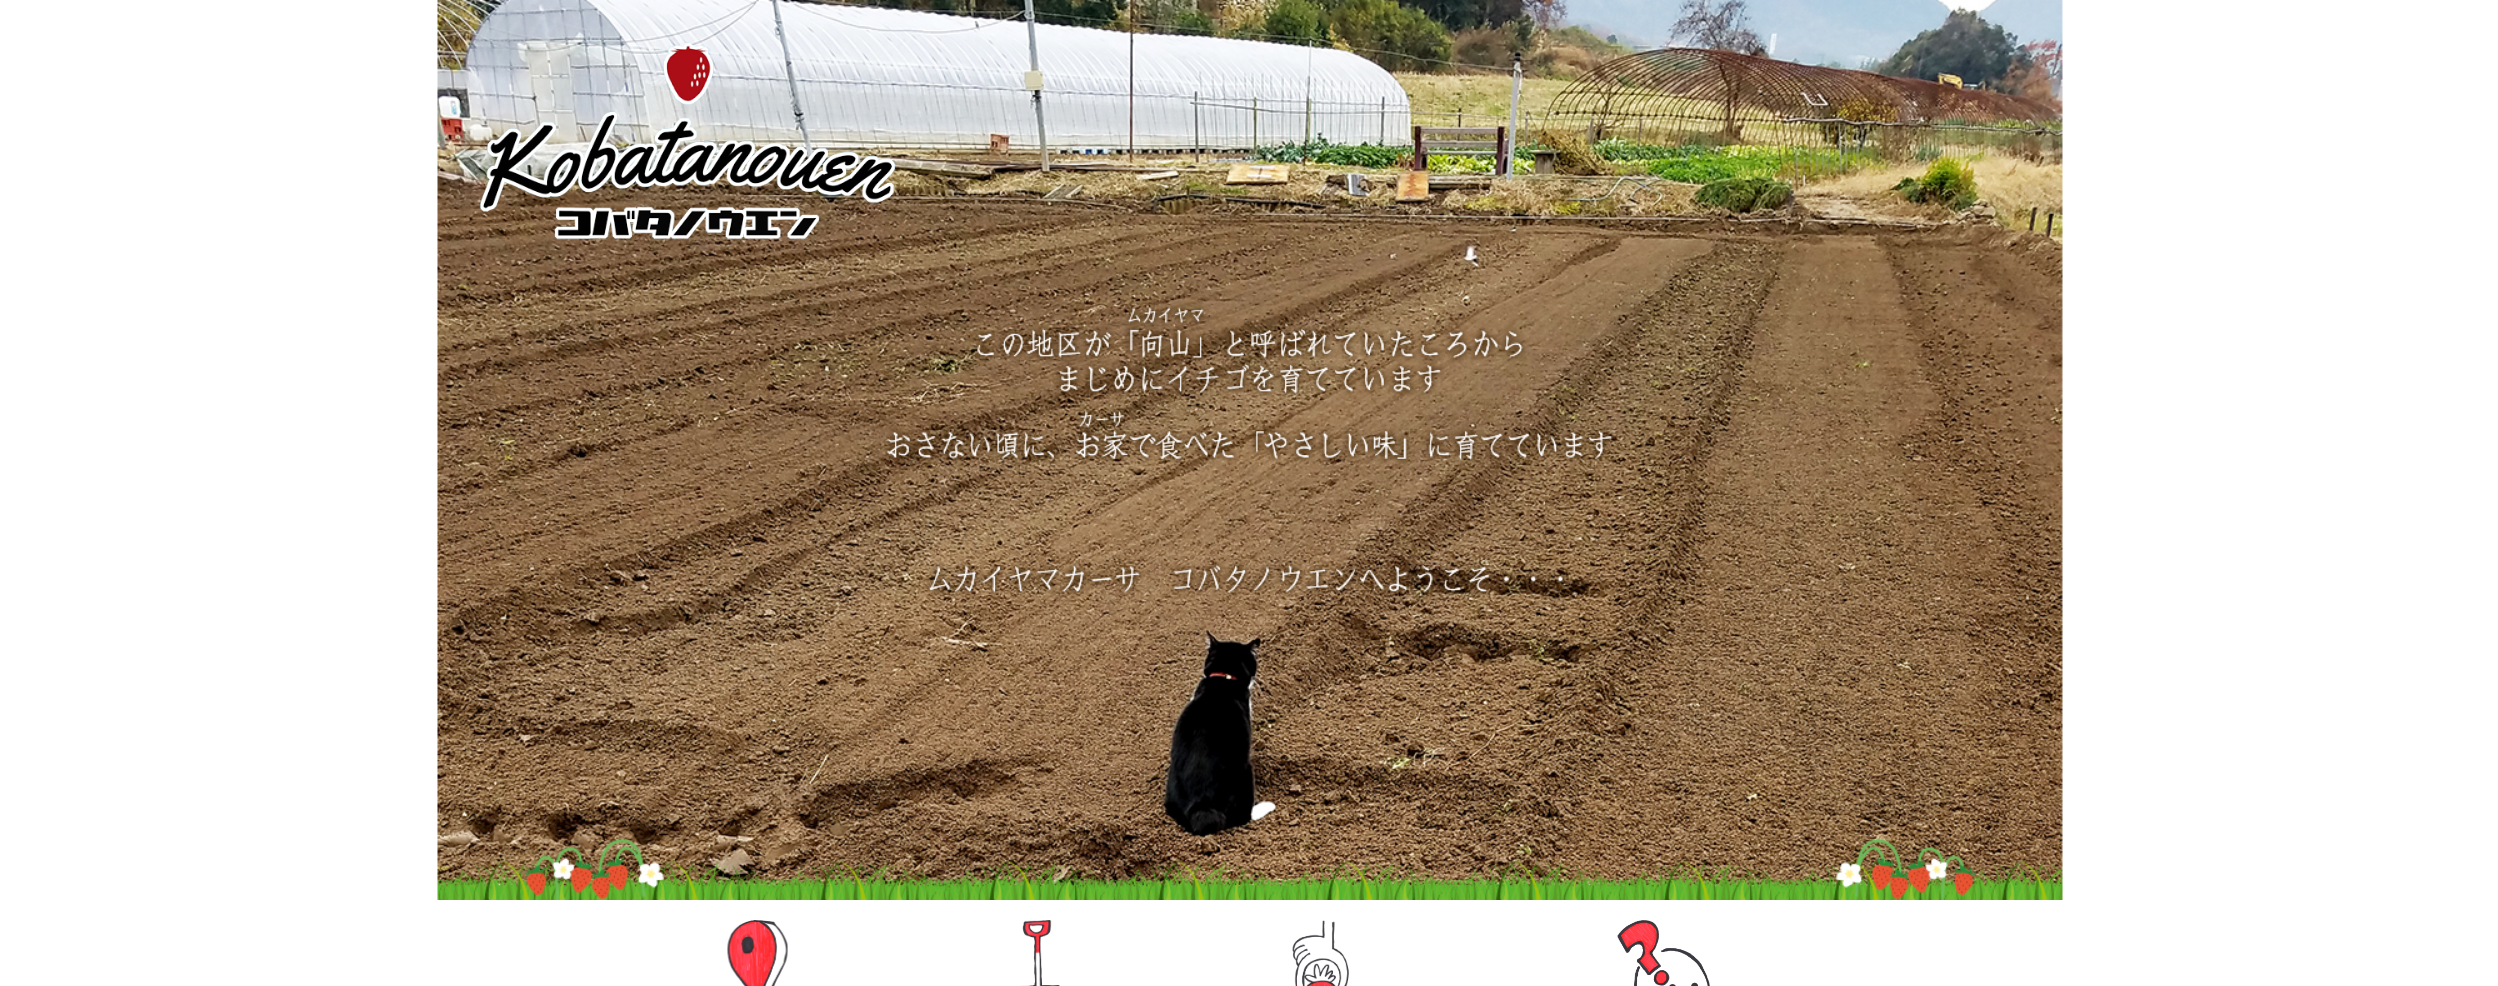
<!DOCTYPE html>
<meta charset="utf-8">
<style>body { margin: 0 } canvas { display: block }</style>
<canvas id="canvas" width="2498" height="986"></canvas>
<script type="module">
  const canvas = document.getElementById("canvas");
  const ctx = canvas.getContext("2d");
  ctx.miterLimit = 4;
  ctx.fontKerning = "normal";
  async function loadImage(src) {
    const img = new Image();
    img.src = src;
    await img.decode();
    return img;
  }

  ctx.fillStyle = "#ffffff";
  ctx.fillRect(0, 0, 2498, 986);
  ctx.drawImage(await loadImage("img1.png"), 437, 0, 1626, 900);
  ctx.drawImage(await loadImage("img2.png"), 882, 303, 734, 294);
  ctx.drawImage(await loadImage("img3.png"), 480, 42, 416, 198);
  ctx.drawImage(await loadImage("img4.png"), 727, 920, 61, 66);
  ctx.drawImage(await loadImage("img5.png"), 1021, 920, 39, 66);
  ctx.drawImage(await loadImage("img6.png"), 1292, 920, 57, 66);
  ctx.drawImage(await loadImage("img7.png"), 1617, 920, 93, 66);
</script>
